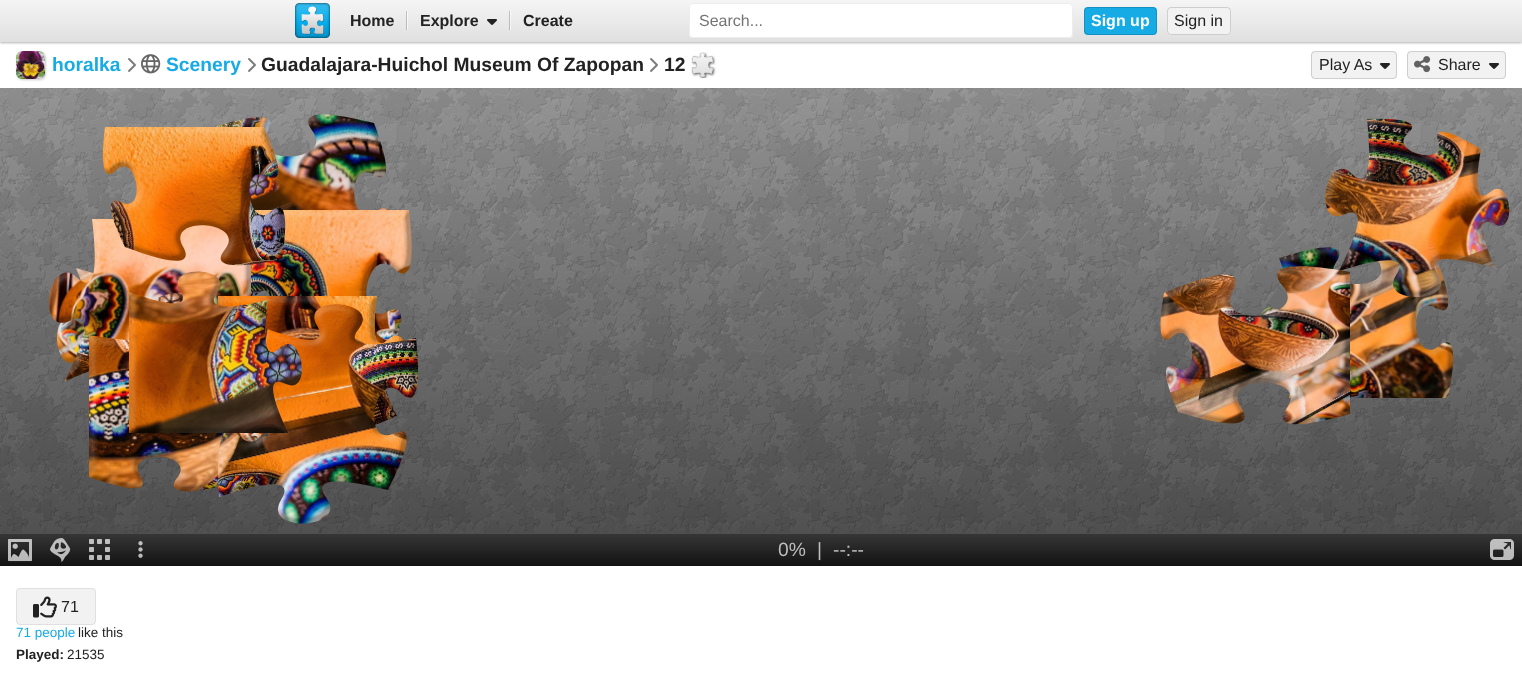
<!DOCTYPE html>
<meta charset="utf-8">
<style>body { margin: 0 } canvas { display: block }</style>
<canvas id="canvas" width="1522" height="686"></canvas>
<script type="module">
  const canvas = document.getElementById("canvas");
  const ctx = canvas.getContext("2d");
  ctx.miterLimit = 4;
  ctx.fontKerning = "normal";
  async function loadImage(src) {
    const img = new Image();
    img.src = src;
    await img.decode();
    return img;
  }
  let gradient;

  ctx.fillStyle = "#ffffff";
  ctx.fillRect(0, 0, 1522, 686);
  ctx.fillStyle = "rgba(0, 0, 0, 0.3)";
  ctx.filter = "blur(1px)";
  ctx.beginPath();
  ctx.rect(0, 1, 1522, 42);
  ctx.fill();
  ctx.filter = "none";
  gradient = ctx.createLinearGradient(761, 0, 761, 42);
  gradient.addColorStop(0, "#f5f5f5");
  gradient.addColorStop(1, "#e0e0e0");
  ctx.fillStyle = gradient;
  ctx.fillRect(0, 0, 1522, 42);
  gradient = ctx.createLinearGradient(761, 0, 761, 42);
  gradient.addColorStop(0, "#c4c4c4");
  gradient.addColorStop(1, "#b3b3b3");
  ctx.fillStyle = gradient;
  ctx.fillRect(509, 11, 1, 19);
  gradient = ctx.createLinearGradient(761, 0, 761, 42);
  gradient.addColorStop(0, "#fbfbfb");
  gradient.addColorStop(1, "#f3f3f3");
  ctx.fillStyle = gradient;
  ctx.fillRect(510, 11, 1, 19);
  gradient = ctx.createLinearGradient(761, 0, 761, 42);
  gradient.addColorStop(0, "#c4c4c4");
  gradient.addColorStop(1, "#b3b3b3");
  ctx.fillStyle = gradient;
  ctx.fillRect(406, 11, 1, 19);
  gradient = ctx.createLinearGradient(761, 0, 761, 42);
  gradient.addColorStop(0, "#fbfbfb");
  gradient.addColorStop(1, "#f3f3f3");
  ctx.fillStyle = gradient;
  ctx.fillRect(407, 11, 1, 19);
  ctx.drawImage(await loadImage("img1.png"), 295, 3, 35, 35);
  ctx.font = "bold 16px Liberation Sans";
  ctx.fillStyle = "#222222";
  ctx.fillText("Home", 350, 26);
  ctx.fillText("Explore", 420, 26);
  ctx.drawImage(await loadImage("img2.png"), 487, 19, 10, 6);
  ctx.fillText("Create", 523, 26);
  ctx.fillStyle = "#ffffff";
  ctx.beginPath();
  ctx.roundRect(689, 3, 384, 35, 4);
  ctx.fill();
  ctx.beginPath();
  ctx.roundRect(689.5, 3.5, 383, 34, 3.5);
  ctx.strokeStyle = "rgba(0, 0, 0, 0.07)";
  ctx.stroke();
  ctx.font = "16px Liberation Sans";
  ctx.fillStyle = "#757575";
  ctx.fillText("Search...", 699, 26);
  ctx.fillStyle = "#17abe6";
  ctx.beginPath();
  ctx.roundRect(1084, 7, 73, 28, 4);
  ctx.fill();
  ctx.beginPath();
  ctx.roundRect(1084.5, 7.5, 72, 27, 3.5);
  ctx.strokeStyle = "rgba(0, 0, 0, 0.15)";
  ctx.stroke();
  ctx.font = "bold 16px Liberation Sans";
  ctx.fillStyle = "#ffffff";
  ctx.fillText("Sign up", 1091, 26);
  ctx.fillStyle = "#f2f2f2";
  ctx.beginPath();
  ctx.roundRect(1167, 7, 64, 28, 4);
  ctx.fill();
  ctx.beginPath();
  ctx.roundRect(1167.5, 7.5, 63, 27, 3.5);
  ctx.stroke();
  ctx.font = "16px Liberation Sans";
  ctx.fillStyle = "#222222";
  ctx.fillText("Sign in", 1174, 26);
  ctx.save();
  ctx.beginPath();
  ctx.moveTo(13, 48);
  ctx.lineTo(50, 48);
  ctx.lineTo(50, 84);
  ctx.lineTo(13, 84);
  ctx.closePath();
  ctx.moveTo(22, 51);
  ctx.lineTo(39, 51);
  ctx.bezierCurveTo(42.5, 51, 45, 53.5, 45, 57);
  ctx.lineTo(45, 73);
  ctx.bezierCurveTo(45, 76.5, 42.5, 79, 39, 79);
  ctx.lineTo(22, 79);
  ctx.bezierCurveTo(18.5, 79, 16, 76.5, 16, 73);
  ctx.lineTo(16, 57);
  ctx.bezierCurveTo(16, 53.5, 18.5, 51, 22, 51);
  ctx.closePath();
  ctx.clip("evenodd");
  ctx.fillStyle = "rgba(0, 0, 0, 0.2)";
  ctx.filter = "blur(1px)";
  ctx.beginPath();
  ctx.roundRect(17, 52, 29, 28, 6);
  ctx.fill();
  ctx.filter = "none";
  ctx.restore();
  ctx.drawImage(await loadImage("img3.png"), 16, 51, 29, 28);
  ctx.beginPath();
  ctx.roundRect(16.5, 51.5, 28, 27, 5.5);
  ctx.strokeStyle = "rgba(0, 0, 0, 0.07)";
  ctx.stroke();
  ctx.font = "bold 19.25px Liberation Sans";
  ctx.fillStyle = "#17abe6";
  ctx.fillText("horalka", 52, 71);
  ctx.drawImage(await loadImage("img4.png"), 128, 58, 8, 14);
  ctx.drawImage(await loadImage("img5.png"), 141, 54, 20, 20);
  ctx.fillText("Scenery", 166, 71);
  ctx.drawImage(await loadImage("img4.png"), 248, 58, 8, 14);
  ctx.fillStyle = "#222222";
  ctx.fillText("Guadalajara-Huichol Museum Of Zapopan", 261, 71);
  ctx.drawImage(await loadImage("img4.png"), 650, 58, 8, 14);
  ctx.fillText("12", 664, 71);
  ctx.drawImage(await loadImage("img6.png"), 691, 52, 25, 26);
  ctx.fillStyle = "#f2f2f2";
  ctx.beginPath();
  ctx.roundRect(1311, 51, 86, 28, 4);
  ctx.fill();
  ctx.beginPath();
  ctx.roundRect(1311.5, 51.5, 85, 27, 3.5);
  ctx.strokeStyle = "rgba(0, 0, 0, 0.15)";
  ctx.stroke();
  ctx.font = "16px Liberation Sans";
  ctx.fillStyle = "#222222";
  ctx.fillText("Play As", 1319, 70);
  ctx.drawImage(await loadImage("img7.png"), 1380, 63, 10, 6);
  ctx.fillStyle = "#f2f2f2";
  ctx.beginPath();
  ctx.roundRect(1407, 51, 99, 28, 4);
  ctx.fill();
  ctx.beginPath();
  ctx.roundRect(1407.5, 51.5, 98, 27, 3.5);
  ctx.stroke();
  ctx.drawImage(await loadImage("img8.png"), 1414, 56, 17, 17);
  ctx.fillStyle = "#222222";
  ctx.fillText("Share", 1438, 70);
  ctx.drawImage(await loadImage("img7.png"), 1489, 63, 10, 6);
  ctx.drawImage(await loadImage("img9.png"), 0, 88, 1522, 445);
  ctx.drawImage(await loadImage("img11.png"), 214, 114, 173, 96);
  ctx.drawImage(await loadImage("img17.png"), 57, 268, 37, 95);
  ctx.drawImage(await loadImage("img13.png"), 49, 219, 202, 162);
  ctx.drawImage(await loadImage("img14.png"), 251, 210, 161, 134);
  ctx.drawImage(await loadImage("img10.png"), 102, 127, 184, 139);
  ctx.drawImage(await loadImage("img16.png"), 1260, 247, 194, 151);
  ctx.drawImage(await loadImage("img12.png"), 1325, 118, 185, 179);
  ctx.drawImage(await loadImage("img15.png"), 1160, 266, 190, 159);
  ctx.drawImage(await loadImage("img20.png"), 218, 296, 186, 146);
  ctx.drawImage(await loadImage("img19.png"), 89, 292, 179, 200);
  ctx.drawImage(await loadImage("img21.png"), 218, 304, 200, 220);
  ctx.drawImage(await loadImage("img18.png"), 129, 271, 173, 162);
  gradient = ctx.createLinearGradient(761, 534, 761, 566);
  gradient.addColorStop(0, "#363636");
  gradient.addColorStop(1, "#121212");
  ctx.fillStyle = gradient;
  ctx.fillRect(0, 534, 1522, 32);
  ctx.fillStyle = "#4f4f4f";
  ctx.fillRect(0, 533, 1522, 1);
  ctx.drawImage(await loadImage("img22.png"), 8, 539, 24, 23);
  ctx.drawImage(await loadImage("img23.png"), 50, 538, 21, 24);
  ctx.drawImage(await loadImage("img24.png"), 89, 539, 21, 21);
  ctx.drawImage(await loadImage("img25.png"), 138, 541, 5, 17);
  ctx.font = "19.25px Liberation Sans";
  ctx.fillStyle = "#bebebe";
  ctx.fillText("0%", 778, 556);
  ctx.fillText("|", 817, 556);
  ctx.fillText("--:--", 833, 556);
  ctx.drawImage(await loadImage("img26.png"), 1490, 539, 24, 21);
  ctx.fillStyle = "#f2f2f2";
  ctx.beginPath();
  ctx.roundRect(16, 588, 80, 37, 4);
  ctx.fill();
  ctx.beginPath();
  ctx.roundRect(16.5, 588.5, 79, 36, 3.5);
  ctx.strokeStyle = "rgba(0, 0, 0, 0.07)";
  ctx.stroke();
  ctx.drawImage(await loadImage("img27.png"), 33, 596, 24, 22);
  ctx.font = "16px Liberation Sans";
  ctx.fillStyle = "#222222";
  ctx.fillText("71", 61, 612);
  ctx.font = "13.5px Liberation Sans";
  ctx.fillStyle = "#17abe6";
  ctx.fillText("71 people", 16, 637);
  ctx.fillStyle = "#222222";
  ctx.fillText("like this", 78, 637);
  ctx.font = "bold 13.5px Liberation Sans";
  ctx.fillText("Played:", 16, 659);
  ctx.font = "13.5px Liberation Sans";
  ctx.fillText("21535", 67, 659);
</script>
